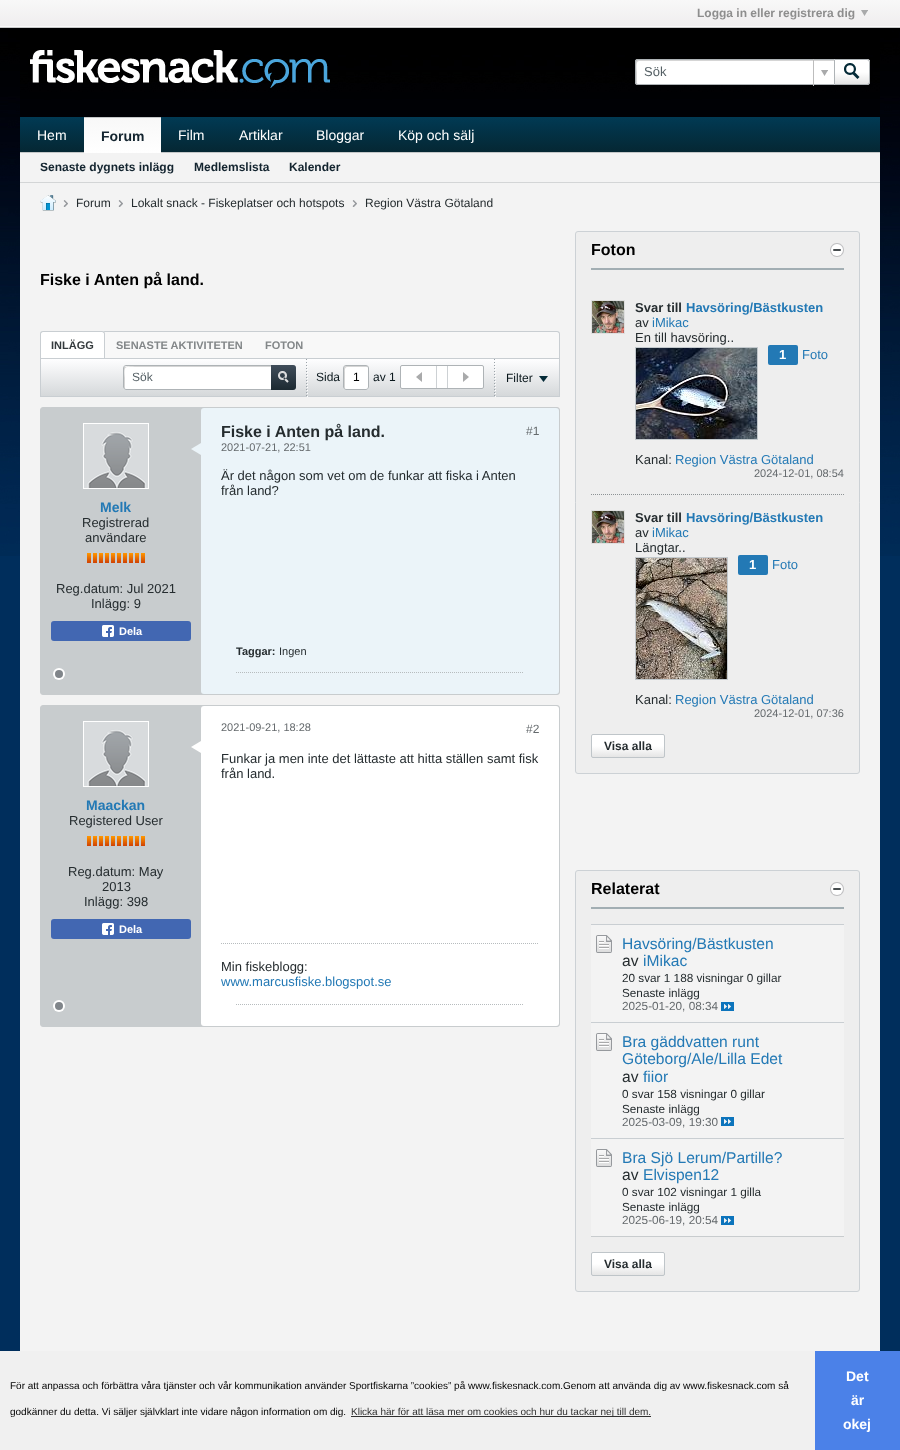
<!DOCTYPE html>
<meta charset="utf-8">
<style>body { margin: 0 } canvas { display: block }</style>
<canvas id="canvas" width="900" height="1450"></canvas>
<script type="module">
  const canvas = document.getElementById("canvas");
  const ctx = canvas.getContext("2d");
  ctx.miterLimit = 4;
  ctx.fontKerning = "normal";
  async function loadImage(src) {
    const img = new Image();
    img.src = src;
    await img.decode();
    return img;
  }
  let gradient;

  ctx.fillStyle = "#002e5c";
  ctx.fillRect(0, 0, 900, 1450);
  ctx.drawImage(await loadImage("img1.png"), 0, 28, 900, 528);
  gradient = ctx.createLinearGradient(450, 0, 450, 28);
  gradient.addColorStop(0, "#f8f8f8");
  gradient.addColorStop(1, "#efedee");
  ctx.fillStyle = gradient;
  ctx.fillRect(0, 0, 900, 26);
  ctx.font = "bold 12px Liberation Sans";
  ctx.fillStyle = "#8e8e8e";
  ctx.fillText("Logga in eller registrera dig", 697, 17);
  ctx.drawImage(await loadImage("img2.png"), 861, 10, 7, 6);
  ctx.fillStyle = "#fafafa";
  ctx.fillRect(0, 26, 900, 1);
  ctx.fillStyle = "#c7c8c9";
  ctx.fillRect(0, 27, 900, 1);
  ctx.drawImage(await loadImage("img3.png"), 20, 28, 860, 89);
  ctx.drawImage(await loadImage("img4.png"), 30, 50, 300, 38);
  ctx.fillStyle = "#ffffff";
  ctx.beginPath();
  ctx.roundRect(635, 59, 199, 26, [3, 0, 0, 3]);
  ctx.fill();
  ctx.fillStyle = "#d5d5d5";
  ctx.beginPath();
  ctx.moveTo(639, 61);
  ctx.lineTo(834, 61);
  ctx.lineTo(834, 60);
  ctx.lineTo(637, 60);
  ctx.bezierCurveTo(635, 61, 636, 64, 636, 65);
  ctx.bezierCurveTo(636, 68, 635, 83, 637, 84);
  ctx.lineTo(637, 73);
  ctx.bezierCurveTo(637, 71, 635, 61, 639, 61);
  ctx.closePath();
  ctx.fill();
  ctx.fillStyle = "#aeb3b6";
  ctx.beginPath();
  ctx.moveTo(638, 59);
  ctx.lineTo(834, 59);
  ctx.lineTo(834, 85);
  ctx.lineTo(638, 85);
  ctx.bezierCurveTo(636, 85, 635, 84, 635, 82);
  ctx.lineTo(635, 62);
  ctx.bezierCurveTo(635, 60, 636, 59, 638, 59);
  ctx.closePath();
  ctx.moveTo(638, 60);
  ctx.lineTo(834, 60);
  ctx.lineTo(834, 84);
  ctx.lineTo(638, 84);
  ctx.bezierCurveTo(637, 84, 636, 83, 636, 82);
  ctx.lineTo(636, 62);
  ctx.bezierCurveTo(636, 61, 637, 60, 638, 60);
  ctx.closePath();
  ctx.fill("evenodd");
  ctx.font = "13px Liberation Sans";
  ctx.fillStyle = "#556065";
  ctx.fillText("Sök", 644, 76);
  ctx.fillStyle = "#bdbdbd";
  ctx.fillRect(813, 59, 1, 27);
  ctx.drawImage(await loadImage("img5.png"), 821, 70, 7, 6);
  ctx.fillStyle = "#ffffff";
  ctx.beginPath();
  ctx.roundRect(834, 59, 36, 26, [0, 3, 3, 0]);
  ctx.fill();
  gradient = ctx.createLinearGradient(852, 84, 852, 60);
  gradient.addColorStop(0, "rgba(0, 0, 0, 0.1)");
  gradient.addColorStop(0.5, "rgba(0, 0, 0, 0)");
  gradient.addColorStop(0.5, "rgba(255, 255, 255, 0)");
  gradient.addColorStop(1, "rgba(255, 255, 255, 0.7)");
  ctx.fillStyle = gradient;
  ctx.fillRect(835, 60, 35, 24);
  ctx.beginPath();
  ctx.roundRect(834.5, 59.5, 35, 25, [0, 2.5, 2.5, 0]);
  ctx.strokeStyle = "#aeb3b6";
  ctx.stroke();
  ctx.drawImage(await loadImage("img6.png"), 844, 63, 16, 16);
  gradient = ctx.createLinearGradient(450, 117, 450, 152);
  gradient.addColorStop(0, "#013a54");
  gradient.addColorStop(1, "#052733");
  ctx.fillStyle = gradient;
  ctx.fillRect(20, 117, 860, 35);
  ctx.fillStyle = "#c4c7c8";
  ctx.fillRect(20, 152, 860, 1);
  ctx.font = "14px Liberation Sans";
  ctx.fillStyle = "#ffffff";
  ctx.fillText("Hem", 37, 140);
  gradient = ctx.createLinearGradient(123, 83, 123, 118);
  gradient.addColorStop(0, "#f8f8f8");
  gradient.addColorStop(1, "#ffffff");
  ctx.fillStyle = gradient;
  ctx.beginPath();
  ctx.roundRect(84, 117, 77, 1, [1, 1, 0, 0]);
  ctx.fill();
  gradient = ctx.createLinearGradient(123, 118, 123, 153);
  gradient.addColorStop(0, "#f8f8f8");
  gradient.addColorStop(1, "#ffffff");
  ctx.fillStyle = gradient;
  ctx.fillRect(84, 118, 77, 35);
  ctx.fillStyle = "#c4c7c8";
  ctx.fillRect(85, 117, 76, 1);
  ctx.font = "bold 14px Liberation Sans";
  ctx.fillStyle = "#13242f";
  ctx.fillText("Forum", 101, 141);
  ctx.font = "14px Liberation Sans";
  ctx.fillStyle = "#ffffff";
  ctx.fillText("Film", 178, 140);
  ctx.fillText("Artiklar", 239, 140);
  ctx.fillText("Bloggar", 316, 140);
  ctx.fillText("Köp och sälj", 398, 140);
  ctx.fillStyle = "#f3f3f3";
  ctx.fillRect(20, 153, 860, 29);
  ctx.fillStyle = "#d3d5d6";
  ctx.fillRect(20, 182, 860, 1);
  ctx.font = "bold 12px Liberation Sans";
  ctx.fillStyle = "#13242f";
  ctx.fillText("Senaste dygnets inlägg", 40, 171);
  ctx.fillText("Medlemslista", 194, 171);
  ctx.fillText("Kalender", 289, 171);
  ctx.fillStyle = "#f3f3f3";
  ctx.fillRect(20, 183, 860, 1168);
  ctx.drawImage(await loadImage("img7.png"), 40, 195, 16, 16);
  ctx.drawImage(await loadImage("img8.png"), 63, 200, 5, 7);
  ctx.font = "12px Liberation Sans";
  ctx.fillStyle = "#252c2f";
  ctx.fillText("Forum", 76, 207);
  ctx.drawImage(await loadImage("img8.png"), 118, 200, 5, 7);
  ctx.fillText("Lokalt snack - Fiskeplatser och hotspots", 131, 207);
  ctx.drawImage(await loadImage("img8.png"), 352, 200, 5, 7);
  ctx.fillText("Region Västra Götaland", 365, 207);
  ctx.font = "bold 16px Liberation Sans";
  ctx.fillStyle = "#000000";
  ctx.fillText("Fiske i Anten på land.", 40, 285);
  ctx.fillStyle = "#f8f8f8";
  ctx.beginPath();
  ctx.roundRect(40, 331, 520, 27, [3, 3, 0, 0]);
  ctx.fill();
  ctx.fillStyle = "#c9ced2";
  ctx.beginPath();
  ctx.moveTo(43, 331);
  ctx.lineTo(557, 331);
  ctx.bezierCurveTo(559, 331, 560, 332, 560, 334);
  ctx.lineTo(560, 358);
  ctx.lineTo(40, 358);
  ctx.lineTo(40, 334);
  ctx.bezierCurveTo(40, 332, 41, 331, 43, 331);
  ctx.closePath();
  ctx.moveTo(43, 332);
  ctx.lineTo(557, 332);
  ctx.bezierCurveTo(558, 332, 559, 333, 559, 334);
  ctx.lineTo(559, 358);
  ctx.lineTo(41, 358);
  ctx.lineTo(41, 334);
  ctx.bezierCurveTo(41, 333, 42, 332, 43, 332);
  ctx.closePath();
  ctx.fill("evenodd");
  ctx.fillStyle = "#f8f8f8";
  ctx.beginPath();
  ctx.roundRect(41, 332, 273, 26, [3, 3, 0, 0]);
  ctx.fill();
  ctx.fillStyle = "#ffffff";
  ctx.beginPath();
  ctx.roundRect(40, 331, 65, 27, [3, 3, 0, 0]);
  ctx.fill();
  ctx.fillStyle = "#c9ced2";
  ctx.beginPath();
  ctx.moveTo(43, 331);
  ctx.lineTo(102, 331);
  ctx.bezierCurveTo(104, 331, 105, 332, 105, 334);
  ctx.lineTo(105, 358);
  ctx.lineTo(40, 358);
  ctx.lineTo(40, 334);
  ctx.bezierCurveTo(40, 332, 41, 331, 43, 331);
  ctx.closePath();
  ctx.moveTo(43, 332);
  ctx.lineTo(102, 332);
  ctx.bezierCurveTo(103, 332, 104, 333, 104, 334);
  ctx.lineTo(104, 358);
  ctx.lineTo(41, 358);
  ctx.lineTo(41, 334);
  ctx.bezierCurveTo(41, 333, 42, 332, 43, 332);
  ctx.closePath();
  ctx.fill("evenodd");
  ctx.font = "bold 11px Liberation Sans";
  ctx.fillStyle = "#343a3d";
  ctx.fillText("INLÄGG", 51, 349);
  ctx.fillStyle = "#838789";
  ctx.fillText("SENASTE AKTIVITETEN", 116, 349);
  ctx.fillText("FOTON", 265, 349);
  gradient = ctx.createLinearGradient(300, 359, 300, 396);
  gradient.addColorStop(0, "#fefeff");
  gradient.addColorStop(1, "#d5d8da");
  ctx.fillStyle = gradient;
  ctx.fillRect(41, 359, 518, 37);
  ctx.strokeStyle = "#c9ced2";
  ctx.strokeRect(40.5, 358.5, 519, 38);
  ctx.fillStyle = "#ffffff";
  ctx.beginPath();
  ctx.roundRect(123, 365, 173, 25, 3);
  ctx.fill();
  ctx.fillStyle = "#d5d5d5";
  ctx.beginPath();
  ctx.moveTo(127, 367);
  ctx.lineTo(295, 367);
  ctx.lineTo(293, 366);
  ctx.lineTo(210, 366);
  ctx.bezierCurveTo(202, 366, 126, 365, 125, 367);
  ctx.lineTo(124, 367);
  ctx.lineTo(124, 388);
  ctx.lineTo(125, 389);
  ctx.lineTo(125, 378);
  ctx.bezierCurveTo(125, 377, 123, 367, 127, 367);
  ctx.closePath();
  ctx.fill();
  ctx.beginPath();
  ctx.roundRect(123.5, 365.5, 172, 24, 2.5);
  ctx.strokeStyle = "#aeb3b6";
  ctx.stroke();
  ctx.font = "12px Liberation Sans";
  ctx.fillStyle = "#556065";
  ctx.fillText("Sök", 132, 381);
  gradient = ctx.createLinearGradient(284, 365, 284, 390);
  gradient.addColorStop(0, "#404d5a");
  gradient.addColorStop(1, "#1c2931");
  ctx.fillStyle = gradient;
  ctx.beginPath();
  ctx.roundRect(271, 365, 25, 25, [0, 3, 3, 0]);
  ctx.fill();
  ctx.drawImage(await loadImage("img9.png"), 278, 371, 11, 12);
  ctx.drawImage(await loadImage("img10.png"), 306, 359, 1, 37);
  ctx.drawImage(await loadImage("img11.png"), 307, 363, 1, 34);
  ctx.fillStyle = "#09161b";
  ctx.fillText("Sida", 316, 381);
  ctx.fillStyle = "#ffffff";
  ctx.beginPath();
  ctx.roundRect(343, 365, 26, 25, 3);
  ctx.fill();
  ctx.fillStyle = "#d5d5d5";
  ctx.beginPath();
  ctx.moveTo(347, 367);
  ctx.lineTo(367, 367);
  ctx.lineTo(368, 367);
  ctx.bezierCurveTo(367.5, 366.5, 367, 366, 366, 366);
  ctx.lineTo(346, 366);
  ctx.bezierCurveTo(345, 366, 344, 367, 344, 368);
  ctx.lineTo(344, 387);
  ctx.bezierCurveTo(344, 388, 344.5, 388.5, 345, 389);
  ctx.lineTo(345, 372);
  ctx.bezierCurveTo(345, 371, 344.5, 367, 347, 367);
  ctx.closePath();
  ctx.fill();
  ctx.beginPath();
  ctx.roundRect(343.5, 365.5, 25, 24, 2.5);
  ctx.stroke();
  ctx.fillStyle = "#000000";
  ctx.fillText("1", 353, 381);
  ctx.fillStyle = "#09161b";
  ctx.fillText("av 1", 373, 381);
  ctx.fillStyle = "#ffffff";
  ctx.beginPath();
  ctx.roundRect(400.5, 365.5, 83, 23, 1.5);
  ctx.fill();
  ctx.stroke();
  ctx.fillStyle = "#cdd1d4";
  ctx.fillRect(436, 366, 1, 22);
  ctx.drawImage(await loadImage("img12.png"), 416, 372, 6, 10);
  ctx.fillRect(447, 366, 1, 22);
  ctx.drawImage(await loadImage("img13.png"), 463, 372, 6, 10);
  ctx.drawImage(await loadImage("img10.png"), 494, 359, 1, 37);
  ctx.drawImage(await loadImage("img11.png"), 495, 363, 1, 34);
  ctx.fillStyle = "#09161b";
  ctx.fillText("Filter", 506, 382);
  ctx.drawImage(await loadImage("img14.png"), 539, 376, 9, 6);
  ctx.fillStyle = "#c8ccce";
  ctx.beginPath();
  ctx.roundRect(40.5, 407.5, 519, 287, 2.5);
  ctx.fill();
  ctx.strokeStyle = "#c8ccce";
  ctx.stroke();
  ctx.strokeStyle = "#ffffff";
  ctx.strokeRect(83.5, 423.5, 65, 65);
  ctx.drawImage(await loadImage("img15.png"), 84, 424, 64, 64);
  ctx.font = "bold 14px Liberation Sans";
  ctx.fillStyle = "#2379b5";
  ctx.fillText("Melk", 100, 512);
  ctx.font = "13px Liberation Sans";
  ctx.fillStyle = "#252c2f";
  ctx.fillText("Registrerad", 82, 527);
  ctx.fillText("användare", 85, 542);
  gradient = ctx.createLinearGradient(89, 553, 89, 563);
  gradient.addColorStop(0, "#ff9900");
  gradient.addColorStop(1, "#cf4104");
  ctx.fillStyle = gradient;
  ctx.fillRect(87, 553, 4, 10);
  gradient = ctx.createLinearGradient(95, 553, 95, 563);
  gradient.addColorStop(0, "#ff9900");
  gradient.addColorStop(1, "#cf4104");
  ctx.fillStyle = gradient;
  ctx.fillRect(93, 553, 4, 10);
  gradient = ctx.createLinearGradient(101, 553, 101, 563);
  gradient.addColorStop(0, "#ff9900");
  gradient.addColorStop(1, "#cf4104");
  ctx.fillStyle = gradient;
  ctx.fillRect(99, 553, 4, 10);
  gradient = ctx.createLinearGradient(107, 553, 107, 563);
  gradient.addColorStop(0, "#ff9900");
  gradient.addColorStop(1, "#cf4104");
  ctx.fillStyle = gradient;
  ctx.fillRect(105, 553, 4, 10);
  gradient = ctx.createLinearGradient(113, 553, 113, 563);
  gradient.addColorStop(0, "#ff9900");
  gradient.addColorStop(1, "#cf4104");
  ctx.fillStyle = gradient;
  ctx.fillRect(111, 553, 4, 10);
  gradient = ctx.createLinearGradient(119, 553, 119, 563);
  gradient.addColorStop(0, "#ff9900");
  gradient.addColorStop(1, "#cf4104");
  ctx.fillStyle = gradient;
  ctx.fillRect(117, 553, 4, 10);
  gradient = ctx.createLinearGradient(125, 553, 125, 563);
  gradient.addColorStop(0, "#ff9900");
  gradient.addColorStop(1, "#cf4104");
  ctx.fillStyle = gradient;
  ctx.fillRect(123, 553, 4, 10);
  gradient = ctx.createLinearGradient(131, 553, 131, 563);
  gradient.addColorStop(0, "#ff9900");
  gradient.addColorStop(1, "#cf4104");
  ctx.fillStyle = gradient;
  ctx.fillRect(129, 553, 4, 10);
  gradient = ctx.createLinearGradient(137, 553, 137, 563);
  gradient.addColorStop(0, "#ff9900");
  gradient.addColorStop(1, "#cf4104");
  ctx.fillStyle = gradient;
  ctx.fillRect(135, 553, 4, 10);
  gradient = ctx.createLinearGradient(143, 553, 143, 563);
  gradient.addColorStop(0, "#ff9900");
  gradient.addColorStop(1, "#cf4104");
  ctx.fillStyle = gradient;
  ctx.fillRect(141, 553, 4, 10);
  ctx.fillStyle = "#252c2f";
  ctx.fillText("Reg.datum: Jul 2021", 56, 593);
  ctx.fillText("Inlägg: 9", 91, 608);
  ctx.drawImage(await loadImage("img16.png"), 53, 668, 12, 12);
  ctx.fillStyle = "#4267b2";
  ctx.beginPath();
  ctx.roundRect(51, 621, 140, 20, 3);
  ctx.fill();
  ctx.drawImage(await loadImage("img17.png"), 102, 625, 12, 12);
  ctx.font = "bold 11px Liberation Sans";
  ctx.fillStyle = "#ffffff";
  ctx.fillText("Dela", 119, 635);
  ctx.fillStyle = "#ebf4f9";
  ctx.beginPath();
  ctx.roundRect(201, 408, 358, 286, 3);
  ctx.fill();
  ctx.beginPath();
  ctx.moveTo(201, 443);
  ctx.lineTo(201, 455);
  ctx.lineTo(191, 449);
  ctx.closePath();
  ctx.fill();
  ctx.font = "bold 16px Liberation Sans";
  ctx.fillStyle = "#252c2f";
  ctx.fillText("Fiske i Anten på land.", 221, 437);
  ctx.font = "11px Liberation Sans";
  ctx.fillStyle = "#656a6d";
  ctx.fillText("2021-07-21, 22:51", 221, 451);
  ctx.font = "12px Liberation Sans";
  ctx.fillText("#1", 526, 435);
  ctx.font = "13px Liberation Sans";
  ctx.fillStyle = "#252c2f";
  ctx.fillText("Är det någon som vet om de funkar att fiska i Anten", 221, 480);
  ctx.fillText("från land?", 221, 495);
  ctx.font = "bold 11px Liberation Sans";
  ctx.fillText("Taggar:", 236, 655);
  ctx.font = "11px Liberation Sans";
  ctx.fillText("Ingen", 279, 655);
  ctx.beginPath();
  ctx.moveTo(236, 672.5);
  ctx.lineTo(524, 672.5);
  ctx.strokeStyle = "#b7bcbe";
  ctx.setLineDash([1, 1]);
  ctx.stroke();
  ctx.fillStyle = "#c8ccce";
  ctx.beginPath();
  ctx.roundRect(40.5, 705.5, 519, 321, 2.5);
  ctx.fill();
  ctx.strokeStyle = "#c8ccce";
  ctx.setLineDash([]);
  ctx.stroke();
  ctx.strokeStyle = "#ffffff";
  ctx.strokeRect(83.5, 721.5, 65, 65);
  ctx.drawImage(await loadImage("img15.png"), 84, 722, 64, 64);
  ctx.font = "bold 14px Liberation Sans";
  ctx.fillStyle = "#2379b5";
  ctx.fillText("Maackan", 86, 810);
  ctx.font = "13px Liberation Sans";
  ctx.fillStyle = "#252c2f";
  ctx.fillText("Registered User", 69, 825);
  gradient = ctx.createLinearGradient(89, 836, 89, 846);
  gradient.addColorStop(0, "#ff9900");
  gradient.addColorStop(1, "#cf4104");
  ctx.fillStyle = gradient;
  ctx.fillRect(87, 836, 4, 10);
  gradient = ctx.createLinearGradient(95, 836, 95, 846);
  gradient.addColorStop(0, "#ff9900");
  gradient.addColorStop(1, "#cf4104");
  ctx.fillStyle = gradient;
  ctx.fillRect(93, 836, 4, 10);
  gradient = ctx.createLinearGradient(101, 836, 101, 846);
  gradient.addColorStop(0, "#ff9900");
  gradient.addColorStop(1, "#cf4104");
  ctx.fillStyle = gradient;
  ctx.fillRect(99, 836, 4, 10);
  gradient = ctx.createLinearGradient(107, 836, 107, 846);
  gradient.addColorStop(0, "#ff9900");
  gradient.addColorStop(1, "#cf4104");
  ctx.fillStyle = gradient;
  ctx.fillRect(105, 836, 4, 10);
  gradient = ctx.createLinearGradient(113, 836, 113, 846);
  gradient.addColorStop(0, "#ff9900");
  gradient.addColorStop(1, "#cf4104");
  ctx.fillStyle = gradient;
  ctx.fillRect(111, 836, 4, 10);
  gradient = ctx.createLinearGradient(119, 836, 119, 846);
  gradient.addColorStop(0, "#ff9900");
  gradient.addColorStop(1, "#cf4104");
  ctx.fillStyle = gradient;
  ctx.fillRect(117, 836, 4, 10);
  gradient = ctx.createLinearGradient(125, 836, 125, 846);
  gradient.addColorStop(0, "#ff9900");
  gradient.addColorStop(1, "#cf4104");
  ctx.fillStyle = gradient;
  ctx.fillRect(123, 836, 4, 10);
  gradient = ctx.createLinearGradient(131, 836, 131, 846);
  gradient.addColorStop(0, "#ff9900");
  gradient.addColorStop(1, "#cf4104");
  ctx.fillStyle = gradient;
  ctx.fillRect(129, 836, 4, 10);
  gradient = ctx.createLinearGradient(137, 836, 137, 846);
  gradient.addColorStop(0, "#ff9900");
  gradient.addColorStop(1, "#cf4104");
  ctx.fillStyle = gradient;
  ctx.fillRect(135, 836, 4, 10);
  gradient = ctx.createLinearGradient(143, 836, 143, 846);
  gradient.addColorStop(0, "#ff9900");
  gradient.addColorStop(1, "#cf4104");
  ctx.fillStyle = gradient;
  ctx.fillRect(141, 836, 4, 10);
  ctx.fillStyle = "#252c2f";
  ctx.fillText("Reg.datum: May", 68, 876);
  ctx.fillText("2013", 102, 891);
  ctx.fillText("Inlägg: 398", 84, 906);
  ctx.drawImage(await loadImage("img16.png"), 53, 1000, 12, 12);
  ctx.fillStyle = "#4267b2";
  ctx.beginPath();
  ctx.roundRect(51, 919, 140, 20, 3);
  ctx.fill();
  ctx.drawImage(await loadImage("img17.png"), 102, 923, 12, 12);
  ctx.font = "bold 11px Liberation Sans";
  ctx.fillStyle = "#ffffff";
  ctx.fillText("Dela", 119, 933);
  ctx.beginPath();
  ctx.roundRect(201, 706, 358, 320, 3);
  ctx.fill();
  ctx.beginPath();
  ctx.moveTo(201, 741);
  ctx.lineTo(201, 753);
  ctx.lineTo(191, 747);
  ctx.closePath();
  ctx.fill();
  ctx.font = "11px Liberation Sans";
  ctx.fillStyle = "#656a6d";
  ctx.fillText("2021-09-21, 18:28", 221, 731);
  ctx.font = "12px Liberation Sans";
  ctx.fillText("#2", 526, 733);
  ctx.font = "13px Liberation Sans";
  ctx.fillStyle = "#252c2f";
  ctx.fillText("Funkar ja men inte det lättaste att hitta ställen samt fisk", 221, 763);
  ctx.fillText("från land.", 221, 778);
  ctx.beginPath();
  ctx.moveTo(221, 943.5);
  ctx.lineTo(539, 943.5);
  ctx.strokeStyle = "#b7bcbe";
  ctx.setLineDash([1, 1]);
  ctx.stroke();
  ctx.fillText("Min fiskeblogg:", 221, 971);
  ctx.fillStyle = "#2379b5";
  ctx.fillText("www.marcusfiske.blogspot.se", 221, 986);
  ctx.beginPath();
  ctx.moveTo(236, 1004.5);
  ctx.lineTo(524, 1004.5);
  ctx.stroke();
  ctx.fillStyle = "#eeeeee";
  ctx.beginPath();
  ctx.roundRect(575.5, 231.5, 284, 542, 2.5);
  ctx.fill();
  ctx.strokeStyle = "#ccd1d5";
  ctx.setLineDash([]);
  ctx.stroke();
  ctx.font = "bold 16px Liberation Sans";
  ctx.fillStyle = "#000000";
  ctx.fillText("Foton", 591, 255);
  ctx.drawImage(await loadImage("img18.png"), 830, 243, 14, 14);
  ctx.fillStyle = "#a2aeb3";
  ctx.fillRect(591, 268, 253, 2);
  ctx.strokeStyle = "#dfdfdf";
  ctx.strokeRect(591.5, 300.5, 33, 33);
  ctx.drawImage(await loadImage("img19.png"), 592, 301, 32, 32);
  ctx.font = "bold 13px Liberation Sans";
  ctx.fillStyle = "#252c2f";
  ctx.fillText("Svar till", 635, 312);
  ctx.fillStyle = "#2379b5";
  ctx.fillText("Havsöring/Bästkusten", 686, 312);
  ctx.font = "13px Liberation Sans";
  ctx.fillStyle = "#252c2f";
  ctx.fillText("av", 635, 327);
  ctx.fillStyle = "#2379b5";
  ctx.fillText("iMikac", 652, 327);
  ctx.fillStyle = "#252c2f";
  ctx.fillText("En till havsöring..", 635, 342);
  ctx.strokeStyle = "#c2c8cc";
  ctx.strokeRect(635.5, 347.5, 122, 92);
  ctx.drawImage(await loadImage("img20.png"), 636, 348, 121, 91);
  ctx.fillStyle = "#2379b5";
  ctx.beginPath();
  ctx.roundRect(768, 345, 30, 20, 2);
  ctx.fill();
  ctx.font = "bold 13px Liberation Sans";
  ctx.fillStyle = "#ffffff";
  ctx.fillText("1", 779, 359);
  ctx.font = "13px Liberation Sans";
  ctx.fillStyle = "#2379b5";
  ctx.fillText("Foto", 802, 359);
  ctx.fillStyle = "#252c2f";
  ctx.fillText("Kanal:", 635, 464);
  ctx.fillStyle = "#2379b5";
  ctx.fillText("Region Västra Götaland", 675, 464);
  ctx.font = "11px Liberation Sans";
  ctx.fillStyle = "#656a6d";
  ctx.fillText("2024-12-01, 08:54", 754, 477);
  ctx.beginPath();
  ctx.moveTo(591, 494.5);
  ctx.lineTo(844, 494.5);
  ctx.strokeStyle = "#8d9295";
  ctx.setLineDash([1, 1]);
  ctx.stroke();
  ctx.strokeStyle = "#dfdfdf";
  ctx.setLineDash([]);
  ctx.strokeRect(591.5, 510.5, 33, 33);
  ctx.drawImage(await loadImage("img19.png"), 592, 511, 32, 32);
  ctx.font = "bold 13px Liberation Sans";
  ctx.fillStyle = "#252c2f";
  ctx.fillText("Svar till", 635, 522);
  ctx.fillStyle = "#2379b5";
  ctx.fillText("Havsöring/Bästkusten", 686, 522);
  ctx.font = "13px Liberation Sans";
  ctx.fillStyle = "#252c2f";
  ctx.fillText("av", 635, 537);
  ctx.fillStyle = "#2379b5";
  ctx.fillText("iMikac", 652, 537);
  ctx.fillStyle = "#252c2f";
  ctx.fillText("Längtar..", 635, 552);
  ctx.strokeStyle = "#c2c8cc";
  ctx.strokeRect(635.5, 557.5, 92, 122);
  ctx.drawImage(await loadImage("img21.png"), 636, 558, 91, 121);
  ctx.fillStyle = "#2379b5";
  ctx.beginPath();
  ctx.roundRect(738, 555, 30, 20, 2);
  ctx.fill();
  ctx.font = "bold 13px Liberation Sans";
  ctx.fillStyle = "#ffffff";
  ctx.fillText("1", 749, 569);
  ctx.font = "13px Liberation Sans";
  ctx.fillStyle = "#2379b5";
  ctx.fillText("Foto", 772, 569);
  ctx.fillStyle = "#252c2f";
  ctx.fillText("Kanal:", 635, 704);
  ctx.fillStyle = "#2379b5";
  ctx.fillText("Region Västra Götaland", 675, 704);
  ctx.font = "11px Liberation Sans";
  ctx.fillStyle = "#656a6d";
  ctx.fillText("2024-12-01, 07:36", 754, 717);
  ctx.save();
  ctx.beginPath();
  ctx.roundRect(591, 734, 74, 24, 2);
  ctx.clip();
  gradient = ctx.createLinearGradient(628, 757, 628, 735);
  gradient.addColorStop(0, "#e5e5e5");
  gradient.addColorStop(0.5, "#ffffff");
  gradient.addColorStop(1, "#ffffff");
  ctx.fillStyle = gradient;
  ctx.fillRect(591, 735, 74, 22);
  ctx.restore();
  ctx.beginPath();
  ctx.roundRect(591.5, 734.5, 73, 23, 1.5);
  ctx.strokeStyle = "#bfc5c9";
  ctx.stroke();
  ctx.font = "bold 12px Liberation Sans";
  ctx.fillStyle = "#252c2f";
  ctx.fillText("Visa alla", 604, 750);
  ctx.fillStyle = "#eeeeee";
  ctx.beginPath();
  ctx.roundRect(575.5, 870.5, 284, 421, 2.5);
  ctx.fill();
  ctx.strokeStyle = "#ccd1d5";
  ctx.stroke();
  ctx.font = "bold 16px Liberation Sans";
  ctx.fillStyle = "#000000";
  ctx.fillText("Relaterat", 591, 894);
  ctx.drawImage(await loadImage("img18.png"), 830, 882, 14, 14);
  ctx.fillStyle = "#a2aeb3";
  ctx.fillRect(591, 907, 253, 2);
  ctx.fillStyle = "#c8ccce";
  ctx.fillRect(591, 1236, 253, 1);
  ctx.fillStyle = "#f3f3f3";
  ctx.fillRect(591, 925, 253, 311);
  ctx.drawImage(await loadImage("img22.png"), 596, 935, 16, 18);
  ctx.fillStyle = "#c9ced2";
  ctx.fillRect(591, 924, 253, 1);
  ctx.font = "15.6px Liberation Sans";
  ctx.fillStyle = "#2379b5";
  ctx.fillText("Havsöring/Bästkusten", 622, 949);
  ctx.fillStyle = "#252c2f";
  ctx.fillText("av", 622, 966);
  ctx.fillStyle = "#2379b5";
  ctx.fillText("iMikac", 643, 966);
  ctx.font = "11.75px Liberation Sans";
  ctx.fillStyle = "#252c2f";
  ctx.fillText("20 svar 1 188 visningar 0 gillar", 622, 982);
  ctx.fillText("Senaste inlägg", 622, 997);
  ctx.fillStyle = "#656a6d";
  ctx.fillText("2025-01-20, 08:34", 622, 1010);
  ctx.drawImage(await loadImage("img23.png"), 721, 1002, 13, 9);
  ctx.drawImage(await loadImage("img22.png"), 596, 1033, 16, 18);
  ctx.fillStyle = "#c9ced2";
  ctx.fillRect(591, 1022, 253, 1);
  ctx.font = "15.6px Liberation Sans";
  ctx.fillStyle = "#2379b5";
  ctx.fillText("Bra gäddvatten runt", 622, 1047);
  ctx.fillText("Göteborg/Ale/Lilla Edet", 622, 1064);
  ctx.fillStyle = "#252c2f";
  ctx.fillText("av", 622, 1082);
  ctx.fillStyle = "#2379b5";
  ctx.fillText("fiior", 643, 1082);
  ctx.font = "11.75px Liberation Sans";
  ctx.fillStyle = "#252c2f";
  ctx.fillText("0 svar 158 visningar 0 gillar", 622, 1098);
  ctx.fillText("Senaste inlägg", 622, 1113);
  ctx.fillStyle = "#656a6d";
  ctx.fillText("2025-03-09, 19:30", 622, 1126);
  ctx.drawImage(await loadImage("img23.png"), 721, 1117, 13, 9);
  ctx.drawImage(await loadImage("img22.png"), 596, 1149, 16, 18);
  ctx.fillStyle = "#c9ced2";
  ctx.fillRect(591, 1138, 253, 1);
  ctx.font = "15.6px Liberation Sans";
  ctx.fillStyle = "#2379b5";
  ctx.fillText("Bra Sjö Lerum/Partille?", 622, 1163);
  ctx.fillStyle = "#252c2f";
  ctx.fillText("av", 622, 1180);
  ctx.fillStyle = "#2379b5";
  ctx.fillText("Elvispen12", 643, 1180);
  ctx.font = "11.75px Liberation Sans";
  ctx.fillStyle = "#252c2f";
  ctx.fillText("0 svar 102 visningar 1 gilla", 622, 1196);
  ctx.fillText("Senaste inlägg", 622, 1211);
  ctx.fillStyle = "#656a6d";
  ctx.fillText("2025-06-19, 20:54", 622, 1224);
  ctx.drawImage(await loadImage("img23.png"), 721, 1216, 13, 9);
  ctx.save();
  ctx.beginPath();
  ctx.roundRect(591, 1252, 74, 24, 2);
  ctx.clip();
  gradient = ctx.createLinearGradient(628, 1275, 628, 1253);
  gradient.addColorStop(0, "#e5e5e5");
  gradient.addColorStop(0.5, "#ffffff");
  gradient.addColorStop(1, "#ffffff");
  ctx.fillStyle = gradient;
  ctx.fillRect(591, 1253, 74, 22);
  ctx.restore();
  ctx.beginPath();
  ctx.roundRect(591.5, 1252.5, 73, 23, 1.5);
  ctx.strokeStyle = "#bfc5c9";
  ctx.stroke();
  ctx.font = "bold 12px Liberation Sans";
  ctx.fillStyle = "#252c2f";
  ctx.fillText("Visa alla", 604, 1268);
  ctx.fillStyle = "#f0f0f0";
  ctx.fillRect(0, 1351, 815, 99);
  ctx.font = "10px Liberation Sans";
  ctx.fillStyle = "#000000";
  ctx.fillText("För att anpassa och förbättra våra tjänster och vår kommunikation använder Sportfiskarna ”cookies” på www.fiskesnack.com.Genom att använda dig av www.fiskesnack.com så", 10, 1389);
  ctx.fillText("godkänner du detta. Vi säljer självklart inte vidare någon information om dig.", 10, 1415);
  ctx.fillStyle = "#303030";
  ctx.fillRect(351, 1416, 300, 1);
  ctx.fillText("Klicka här för att läsa mer om cookies och hur du tackar nej till dem.", 351, 1415);
  ctx.fillStyle = "#4b81e8";
  ctx.fillRect(815, 1351, 85, 99);
  ctx.font = "bold 14px Liberation Sans";
  ctx.fillStyle = "#ffffff";
  ctx.fillText("Det", 846, 1381);
  ctx.fillText("är", 851, 1405);
  ctx.fillText("okej", 843, 1429);
</script>
